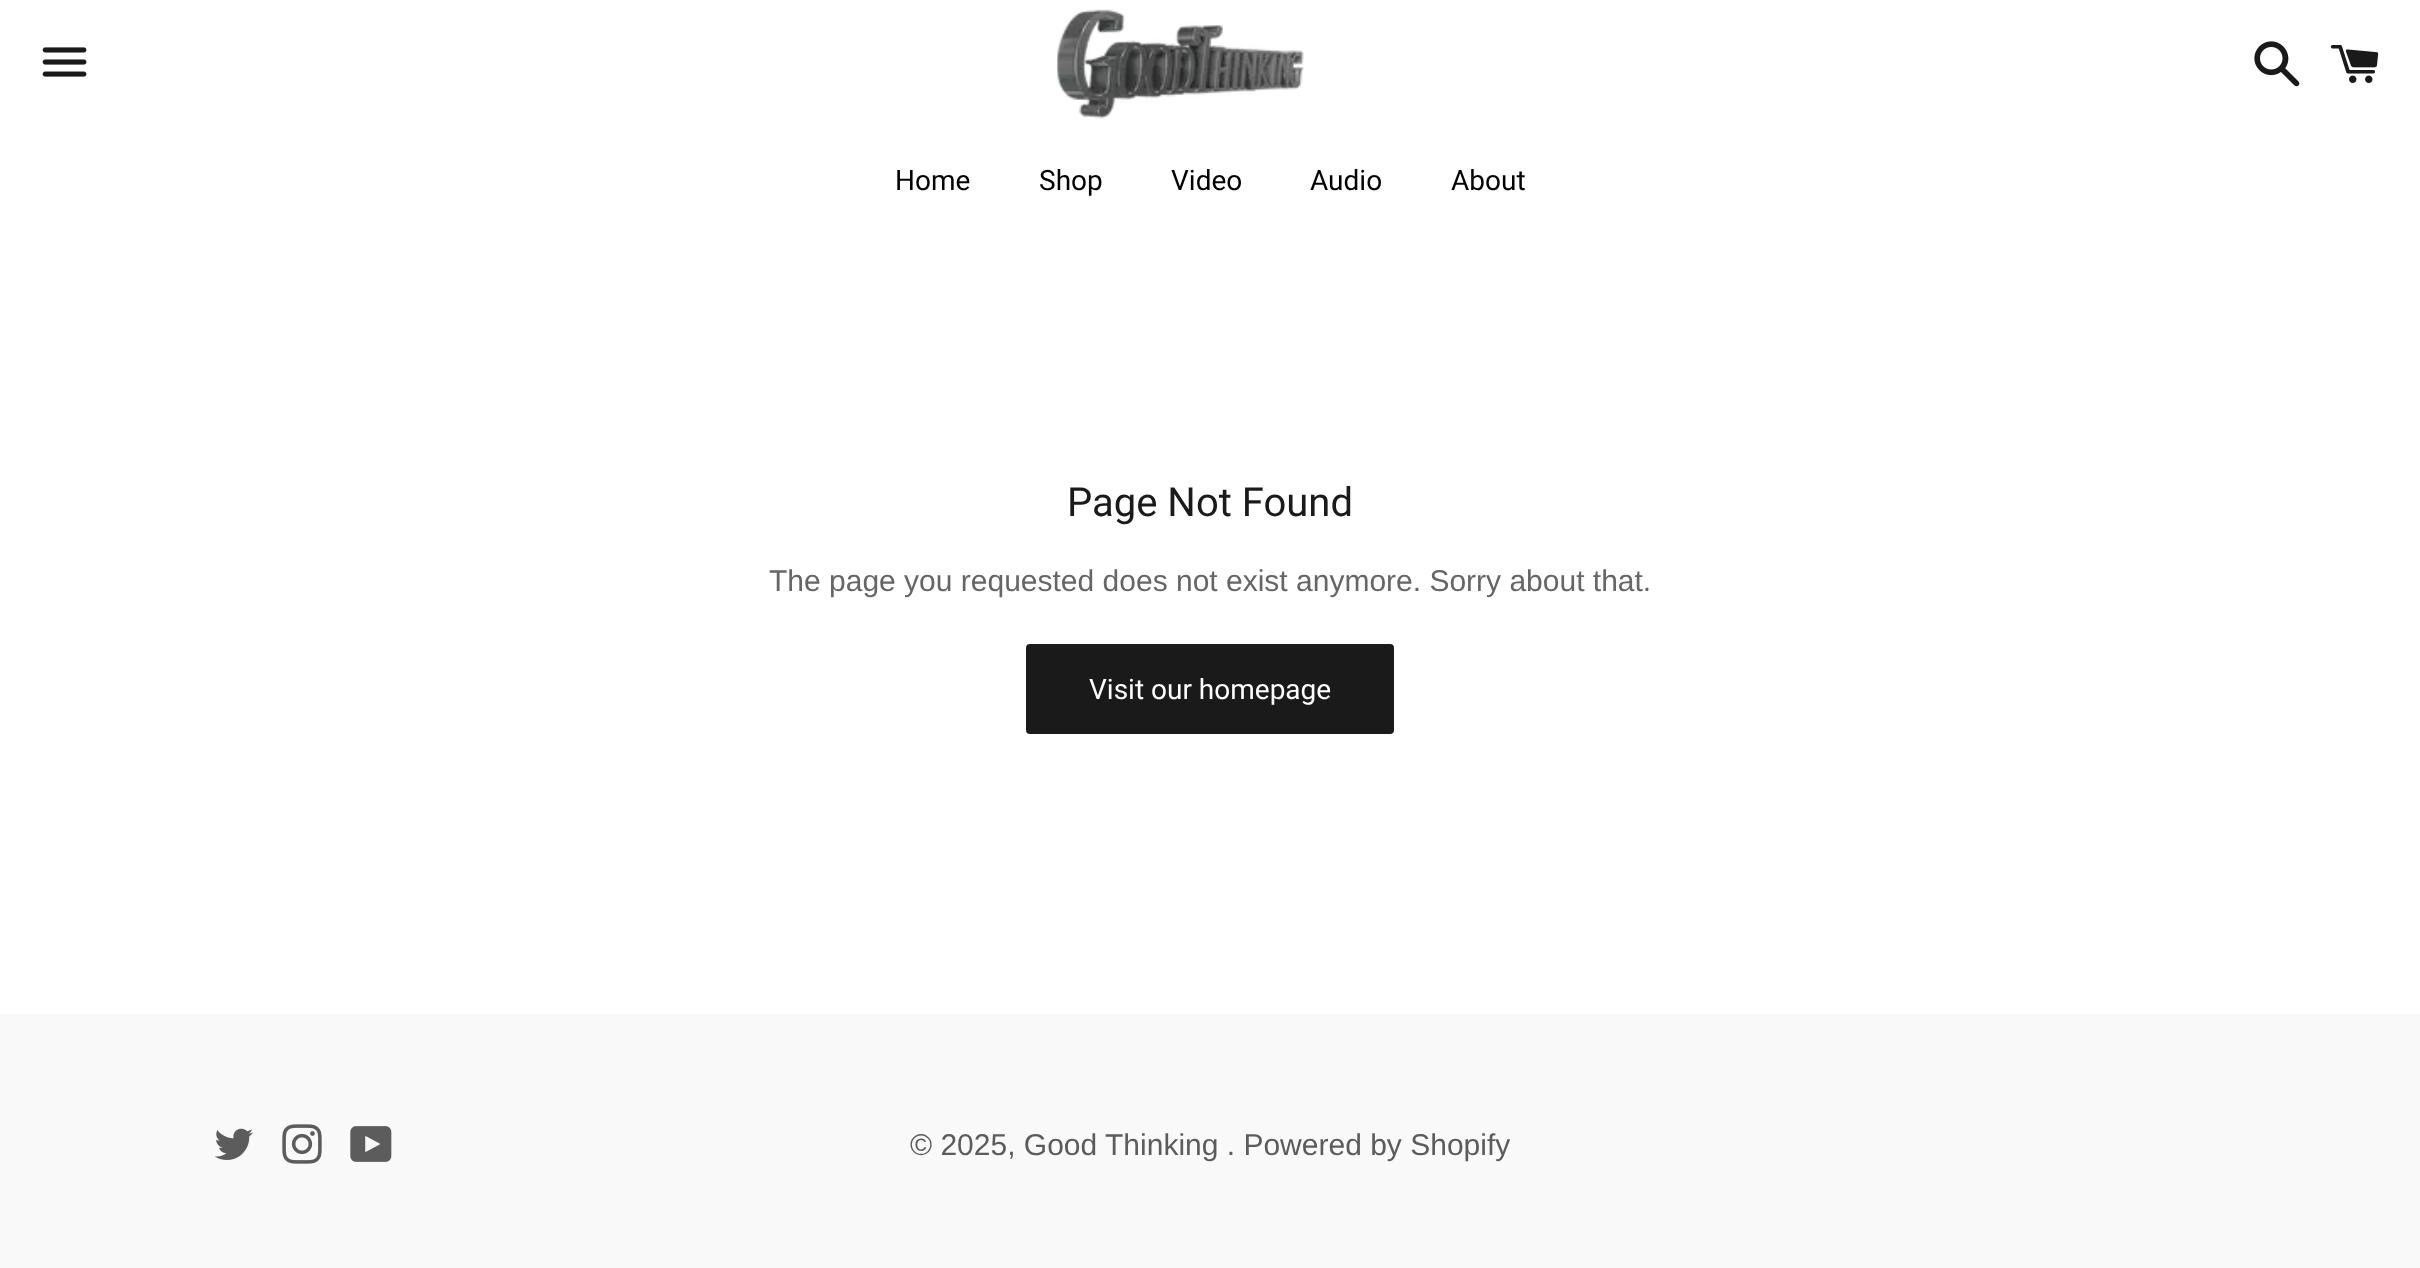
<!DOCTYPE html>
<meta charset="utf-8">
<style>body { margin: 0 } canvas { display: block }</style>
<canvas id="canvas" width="2420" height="1268"></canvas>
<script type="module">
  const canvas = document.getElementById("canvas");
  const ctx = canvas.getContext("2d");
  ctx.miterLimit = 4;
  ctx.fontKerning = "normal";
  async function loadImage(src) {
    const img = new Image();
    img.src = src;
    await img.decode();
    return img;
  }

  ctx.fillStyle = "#ffffff";
  ctx.fillRect(0, 0, 2420, 1268);
  ctx.drawImage(await loadImage("img1.png"), 42, 47, 45, 30);
  ctx.drawImage(await loadImage("img2.png"), 1056, 9, 248, 110);
  ctx.drawImage(await loadImage("img3.png"), 2254, 41, 46, 46);
  ctx.drawImage(await loadImage("img4.png"), 2330, 45, 49, 38);
  ctx.font = "28px Roboto";
  ctx.fillStyle = "#000000";
  ctx.fillText("Home", 895, 190);
  ctx.fillText("Shop", 1039, 190);
  ctx.fillText("Video", 1171, 190);
  ctx.fillText("Audio", 1310, 190);
  ctx.fillText("About", 1451, 190);
  ctx.font = "40px Roboto";
  ctx.fillStyle = "#1a1a1a";
  ctx.fillText("Page Not Found", 1067, 516);
  ctx.font = "30px Arimo";
  ctx.fillStyle = "#666666";
  ctx.fillText("The page you requested does not exist anymore. Sorry about that.", 769, 591);
  ctx.fillStyle = "#1a1a1a";
  ctx.beginPath();
  ctx.roundRect(1026, 644, 368, 90, 4);
  ctx.fill();
  ctx.font = "28px Roboto";
  ctx.fillStyle = "#ffffff";
  ctx.fillText("Visit our homepage", 1089, 699);
  ctx.fillStyle = "#f9f9f9";
  ctx.fillRect(0, 1014, 2420, 254);
  ctx.drawImage(await loadImage("img5.png"), 214, 1128, 39, 32);
  ctx.drawImage(await loadImage("img6.png"), 282, 1124, 40, 40);
  ctx.drawImage(await loadImage("img7.png"), 350, 1126, 42, 36);
  ctx.font = "30px Arimo";
  ctx.fillStyle = "#5c5c5c";
  ctx.fillText("© 2025, Good Thinking . Powered by Shopify", 910, 1155);
</script>
